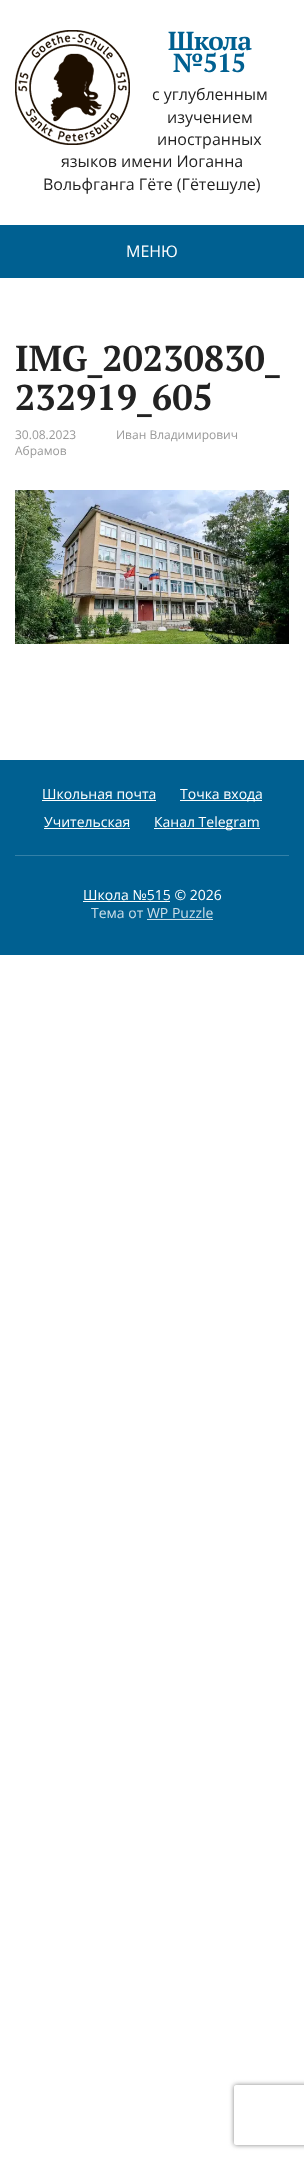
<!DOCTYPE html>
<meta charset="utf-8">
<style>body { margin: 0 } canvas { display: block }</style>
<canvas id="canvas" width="304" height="2159"></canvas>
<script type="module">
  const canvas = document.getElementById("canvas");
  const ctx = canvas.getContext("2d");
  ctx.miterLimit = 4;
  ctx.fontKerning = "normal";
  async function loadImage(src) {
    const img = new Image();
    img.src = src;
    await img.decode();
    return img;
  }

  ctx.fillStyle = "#ffffff";
  ctx.fillRect(0, 0, 304, 2159);
  ctx.drawImage(await loadImage("img1.png"), 15, 30, 115, 115);
  ctx.letterSpacing = "-0.5px";
  ctx.font = "bold 26px PT Serif";
  ctx.fillStyle = "#006091";
  ctx.fillText("Школа", 168, 50);
  ctx.fillText("№515", 173, 72);
  ctx.letterSpacing = "0px";
  ctx.font = "16px Open Sans";
  ctx.fillStyle = "#222222";
  ctx.fillText("с углубленным", 152, 100);
  ctx.fillText("изучением", 167, 123);
  ctx.fillText("иностранных", 157, 145);
  ctx.fillText("языков имени Иоганна", 61, 167);
  ctx.fillText("Вольфганга Гёте (Гётешуле)", 43, 190);
  ctx.fillStyle = "#006091";
  ctx.fillRect(0, 225, 304, 53);
  ctx.fillStyle = "#ffffff";
  ctx.fillText("МЕНЮ", 126, 257);
  ctx.font = "bold 36px PT Serif";
  ctx.fillStyle = "#222222";
  ctx.fillText("IMG_20230830_", 15, 371);
  ctx.fillText("232919_605", 15, 410);
  ctx.font = "12px Open Sans";
  ctx.fillStyle = "#999999";
  ctx.fillText("30.08.2023", 15, 439);
  ctx.fillText("Иван Владимирович", 116, 439);
  ctx.fillText("Абрамов", 15, 455);
  ctx.drawImage(await loadImage("img2.png"), 15, 490, 274, 154);
  ctx.fillStyle = "#006091";
  ctx.fillRect(0, 760, 304, 195);
  ctx.fillStyle = "#3380a7";
  ctx.fillRect(15, 855, 274, 1);
  ctx.font = "14px Open Sans";
  ctx.fillStyle = "#ffffff";
  ctx.fillText("Школьная почта", 42, 799);
  ctx.fillRect(42, 800, 114, 1);
  ctx.fillRect(180, 800, 82, 1);
  ctx.fillText("Точка входа", 180, 799);
  ctx.fillText("Учительская", 44, 827);
  ctx.fillRect(44, 828, 86, 1);
  ctx.fillRect(154, 828, 106, 1);
  ctx.fillText("Канал Telegram", 154, 827);
  ctx.fillText("Школа №515 © 2026", 83, 900);
  ctx.fillRect(83, 901, 87, 1);
  ctx.fillStyle = "#ccdfe9";
  ctx.fillText("Тема от WP Puzzle", 91, 918);
  ctx.fillRect(147, 919, 66, 1);
  ctx.save();
  ctx.beginPath();
  ctx.moveTo(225, 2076);
  ctx.lineTo(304, 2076);
  ctx.lineTo(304, 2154);
  ctx.lineTo(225, 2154);
  ctx.closePath();
  ctx.moveTo(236, 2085);
  ctx.lineTo(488, 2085);
  ctx.bezierCurveTo(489, 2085, 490, 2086, 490, 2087);
  ctx.lineTo(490, 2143);
  ctx.bezierCurveTo(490, 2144, 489, 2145, 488, 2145);
  ctx.lineTo(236, 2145);
  ctx.bezierCurveTo(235, 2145, 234, 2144, 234, 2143);
  ctx.lineTo(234, 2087);
  ctx.bezierCurveTo(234, 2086, 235, 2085, 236, 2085);
  ctx.closePath();
  ctx.clip("evenodd");
  ctx.fillStyle = "#808080";
  ctx.filter = "blur(2.5px)";
  ctx.beginPath();
  ctx.roundRect(234, 2085, 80, 60, 2);
  ctx.fill();
  ctx.filter = "none";
  ctx.restore();
</script>
